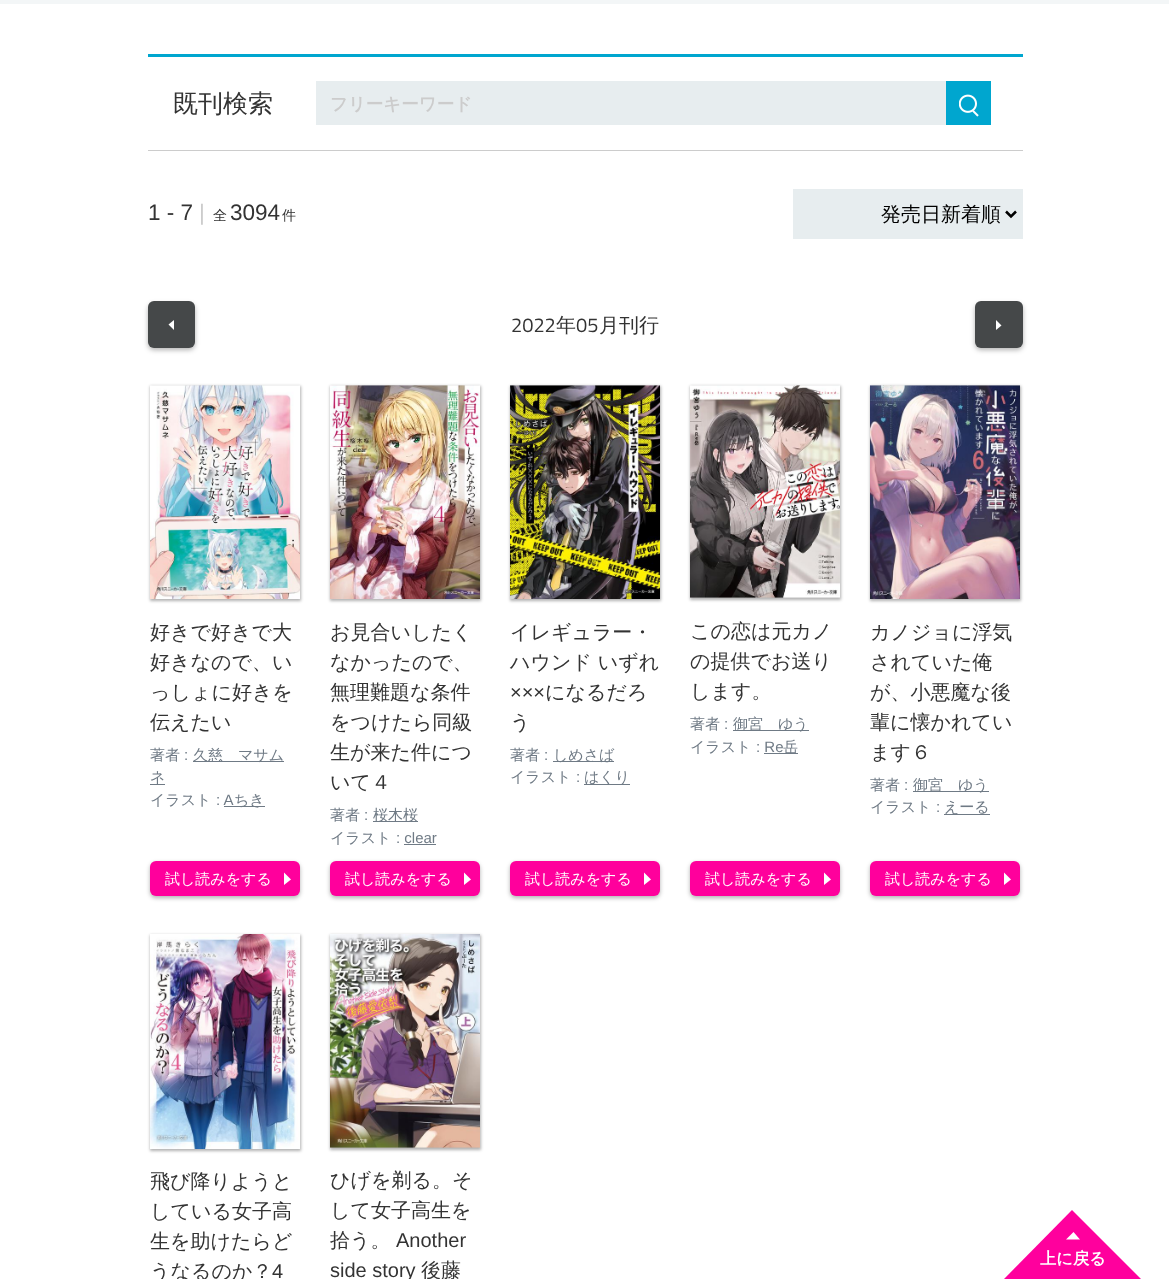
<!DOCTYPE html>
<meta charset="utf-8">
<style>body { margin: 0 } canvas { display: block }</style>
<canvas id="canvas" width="1169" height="1279"></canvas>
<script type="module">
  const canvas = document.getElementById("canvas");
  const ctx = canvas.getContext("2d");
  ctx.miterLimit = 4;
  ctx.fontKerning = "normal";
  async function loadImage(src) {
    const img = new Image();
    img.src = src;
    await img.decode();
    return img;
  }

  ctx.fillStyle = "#ffffff";
  ctx.fillRect(0, 0, 1169, 1279);
  ctx.fillStyle = "#f3f6f7";
  ctx.fillRect(0, 0, 1169, 4);
  ctx.fillStyle = "#00a6cf";
  ctx.fillRect(148, 54, 875, 3);
  ctx.fillStyle = "#cccccc";
  ctx.fillRect(148, 150, 875, 1);
  ctx.font = "500 25px WenQuanYi Zen Hei";
  ctx.fillStyle = "#333333";
  ctx.fillText("既刊検索", 173, 112);
  ctx.fillStyle = "#e7edef";
  ctx.fillRect(316, 81, 630, 44);
  ctx.font = "bold 17.5px WenQuanYi Zen Hei";
  ctx.fillStyle = "#cccccc";
  ctx.fillText("フリーキーワード", 330, 110);
  ctx.fillStyle = "#00a6cf";
  ctx.fillRect(946, 81, 45, 44);
  ctx.drawImage(await loadImage("img1.png"), 959, 94, 20, 23);
  ctx.font = "22.5px Liberation Sans";
  ctx.fillStyle = "#333333";
  ctx.fillText("1 - 7", 148, 220);
  ctx.fillStyle = "#cccccc";
  ctx.fillText("|", 199, 220);
  ctx.font = "500 14px WenQuanYi Zen Hei";
  ctx.fillStyle = "#333333";
  ctx.fillText("全", 213, 220);
  ctx.font = "22.5px Liberation Sans";
  ctx.fillText("3094", 230, 220);
  ctx.font = "500 14px WenQuanYi Zen Hei";
  ctx.fillText("件", 282, 220);
  ctx.fillStyle = "#e7edef";
  ctx.fillRect(793, 189, 230, 50);
  ctx.beginPath();
  ctx.moveTo(1006, 211.5);
  ctx.lineTo(1011, 216.5);
  ctx.lineTo(1016, 211.5);
  ctx.strokeStyle = "#000000";
  ctx.lineWidth = 2.5;
  ctx.stroke();
  ctx.font = "500 20px WenQuanYi Zen Hei";
  ctx.fillStyle = "#000000";
  ctx.fillText("発売日新着順", 881, 221);
  ctx.fillStyle = "rgba(0, 0, 0, 0.3)";
  ctx.filter = "blur(2.5px)";
  ctx.beginPath();
  ctx.roundRect(148, 304, 47, 46, 6);
  ctx.fill();
  ctx.filter = "none";
  ctx.fillStyle = "#454849";
  ctx.beginPath();
  ctx.roundRect(148, 301, 47, 47, 6);
  ctx.fill();
  ctx.fillStyle = "#ffffff";
  ctx.beginPath();
  ctx.moveTo(174, 330);
  ctx.lineTo(174, 320);
  ctx.lineTo(168.5, 324.5);
  ctx.closePath();
  ctx.fill();
  ctx.fillStyle = "rgba(0, 0, 0, 0.3)";
  ctx.filter = "blur(2.5px)";
  ctx.beginPath();
  ctx.roundRect(975, 304, 48, 46, 6);
  ctx.fill();
  ctx.filter = "none";
  ctx.fillStyle = "#454849";
  ctx.beginPath();
  ctx.roundRect(975, 301, 48, 47, 6);
  ctx.fill();
  ctx.fillStyle = "#ffffff";
  ctx.beginPath();
  ctx.moveTo(996, 320);
  ctx.lineTo(996, 330);
  ctx.lineTo(1001.5, 325.5);
  ctx.closePath();
  ctx.fill("evenodd");
  ctx.font = "20px Titillium Web";
  ctx.fillStyle = "#333333";
  ctx.fillText("2022", 511, 332);
  ctx.font = "500 20px WenQuanYi Zen Hei";
  ctx.fillText("年", 556, 332);
  ctx.font = "20px Titillium Web";
  ctx.fillText("05", 576, 332);
  ctx.font = "500 20px WenQuanYi Zen Hei";
  ctx.fillText("月刊行", 599, 332);
  ctx.fillStyle = "rgba(0, 0, 0, 0.3)";
  ctx.filter = "blur(1.5px)";
  ctx.beginPath();
  ctx.rect(150, 386, 151, 215);
  ctx.fill();
  ctx.filter = "none";
  ctx.drawImage(await loadImage("img2.png"), 150, 385, 150, 214);
  ctx.fillStyle = "#333333";
  ctx.fillText("好きで好きで大", 150, 639);
  ctx.fillText("好きなので、い", 150, 669);
  ctx.fillText("っしょに好きを", 150, 699);
  ctx.fillText("伝えたい", 150, 729);
  ctx.font = "500 15px WenQuanYi Zen Hei";
  ctx.fillStyle = "#6f7a85";
  ctx.fillText("著者", 150, 760);
  ctx.font = "15px Liberation Sans";
  ctx.fillText(":", 184, 760);
  ctx.fillRect(193, 761, 91, 1);
  ctx.font = "500 15px WenQuanYi Zen Hei";
  ctx.fillText("久慈　マサム", 193, 760);
  ctx.fillText("ネ", 150, 782);
  ctx.fillRect(150, 784, 15, 1);
  ctx.fillText("イラスト", 150, 805);
  ctx.font = "15px Liberation Sans";
  ctx.fillText(": A", 216, 805);
  ctx.fillRect(224, 806, 41, 1);
  ctx.font = "500 15px WenQuanYi Zen Hei";
  ctx.fillText("ちき", 234, 805);
  ctx.fillStyle = "rgba(0, 0, 0, 0.3)";
  ctx.filter = "blur(2px)";
  ctx.beginPath();
  ctx.roundRect(150, 863, 150, 35, 6);
  ctx.fill();
  ctx.filter = "none";
  ctx.fillStyle = "#ff009c";
  ctx.beginPath();
  ctx.roundRect(150, 861, 150, 35, 6);
  ctx.fill();
  ctx.fillStyle = "#ffffff";
  ctx.beginPath();
  ctx.moveTo(284, 872.5);
  ctx.lineTo(284, 885);
  ctx.lineTo(291, 879.5);
  ctx.closePath();
  ctx.fill("evenodd");
  ctx.fillText("試し読みをする", 165, 884);
  ctx.fillStyle = "rgba(0, 0, 0, 0.3)";
  ctx.filter = "blur(1.5px)";
  ctx.beginPath();
  ctx.rect(330, 386, 151, 215);
  ctx.fill();
  ctx.filter = "none";
  ctx.drawImage(await loadImage("img3.png"), 330, 385, 150, 214);
  ctx.font = "500 20px WenQuanYi Zen Hei";
  ctx.fillStyle = "#333333";
  ctx.fillText("お見合いしたく", 330, 639);
  ctx.fillText("なかったので、", 330, 669);
  ctx.fillText("無理難題な条件", 330, 699);
  ctx.fillText("をつけたら同級", 330, 729);
  ctx.fillText("生が来た件につ", 330, 759);
  ctx.fillText("いて４", 330, 789);
  ctx.font = "500 15px WenQuanYi Zen Hei";
  ctx.fillStyle = "#6f7a85";
  ctx.fillText("著者", 330, 820);
  ctx.font = "15px Liberation Sans";
  ctx.fillText(":", 364, 820);
  ctx.fillRect(373, 821, 45, 1);
  ctx.font = "500 15px WenQuanYi Zen Hei";
  ctx.fillText("桜木桜", 373, 820);
  ctx.fillText("イラスト", 330, 843);
  ctx.font = "15px Liberation Sans";
  ctx.fillText(": clear", 396, 843);
  ctx.fillRect(404, 844, 32, 1);
  ctx.fillStyle = "rgba(0, 0, 0, 0.3)";
  ctx.filter = "blur(2px)";
  ctx.beginPath();
  ctx.roundRect(330, 863, 150, 35, 6);
  ctx.fill();
  ctx.filter = "none";
  ctx.fillStyle = "#ff009c";
  ctx.beginPath();
  ctx.roundRect(330, 861, 150, 35, 6);
  ctx.fill();
  ctx.fillStyle = "#ffffff";
  ctx.beginPath();
  ctx.moveTo(464, 872.5);
  ctx.lineTo(464, 885);
  ctx.lineTo(471, 879.5);
  ctx.closePath();
  ctx.fill("evenodd");
  ctx.font = "500 15px WenQuanYi Zen Hei";
  ctx.fillText("試し読みをする", 345, 884);
  ctx.fillStyle = "rgba(0, 0, 0, 0.3)";
  ctx.filter = "blur(1.5px)";
  ctx.beginPath();
  ctx.rect(510, 386, 151, 215);
  ctx.fill();
  ctx.filter = "none";
  ctx.drawImage(await loadImage("img4.png"), 510, 385, 150, 214);
  ctx.font = "500 20px WenQuanYi Zen Hei";
  ctx.fillStyle = "#333333";
  ctx.fillText("イレギュラー・", 510, 639);
  ctx.fillText("ハウンド いずれ", 510, 669);
  ctx.font = "20px Liberation Sans";
  ctx.fillText("×××", 510, 699);
  ctx.font = "500 20px WenQuanYi Zen Hei";
  ctx.fillText("になるだろ", 545, 699);
  ctx.fillText("う", 510, 729);
  ctx.font = "500 15px WenQuanYi Zen Hei";
  ctx.fillStyle = "#6f7a85";
  ctx.fillText("著者", 510, 760);
  ctx.font = "15px Liberation Sans";
  ctx.fillText(":", 544, 760);
  ctx.fillRect(553, 761, 61, 1);
  ctx.font = "500 15px WenQuanYi Zen Hei";
  ctx.fillText("しめさば", 553, 760);
  ctx.fillText("イラスト", 510, 782);
  ctx.font = "15px Liberation Sans";
  ctx.fillText(":", 576, 782);
  ctx.fillRect(584, 784, 46, 1);
  ctx.font = "500 15px WenQuanYi Zen Hei";
  ctx.fillText("はくり", 584, 782);
  ctx.fillStyle = "rgba(0, 0, 0, 0.3)";
  ctx.filter = "blur(2px)";
  ctx.beginPath();
  ctx.roundRect(510, 863, 150, 35, 6);
  ctx.fill();
  ctx.filter = "none";
  ctx.fillStyle = "#ff009c";
  ctx.beginPath();
  ctx.roundRect(510, 861, 150, 35, 6);
  ctx.fill();
  ctx.fillStyle = "#ffffff";
  ctx.beginPath();
  ctx.moveTo(644, 872.5);
  ctx.lineTo(644, 885);
  ctx.lineTo(651, 879.5);
  ctx.closePath();
  ctx.fill("evenodd");
  ctx.fillText("試し読みをする", 525, 884);
  ctx.fillStyle = "rgba(0, 0, 0, 0.3)";
  ctx.filter = "blur(1.5px)";
  ctx.beginPath();
  ctx.rect(690, 386, 151, 214);
  ctx.fill();
  ctx.filter = "none";
  ctx.drawImage(await loadImage("img5.png"), 690, 385, 150, 213);
  ctx.font = "500 20px WenQuanYi Zen Hei";
  ctx.fillStyle = "#333333";
  ctx.fillText("この恋は元カノ", 690, 638);
  ctx.fillText("の提供でお送り", 690, 668);
  ctx.fillText("します。", 690, 698);
  ctx.font = "500 15px WenQuanYi Zen Hei";
  ctx.fillStyle = "#6f7a85";
  ctx.fillText("著者", 690, 729);
  ctx.font = "15px Liberation Sans";
  ctx.fillText(":", 724, 729);
  ctx.fillRect(733, 730, 76, 1);
  ctx.font = "500 15px WenQuanYi Zen Hei";
  ctx.fillText("御宮　ゆう", 733, 729);
  ctx.fillText("イラスト", 690, 752);
  ctx.font = "15px Liberation Sans";
  ctx.fillText(": Re", 756, 752);
  ctx.fillRect(764, 753, 34, 1);
  ctx.font = "500 15px WenQuanYi Zen Hei";
  ctx.fillText("岳", 783, 752);
  ctx.fillStyle = "rgba(0, 0, 0, 0.3)";
  ctx.filter = "blur(2px)";
  ctx.beginPath();
  ctx.roundRect(690, 863, 150, 35, 6);
  ctx.fill();
  ctx.filter = "none";
  ctx.fillStyle = "#ff009c";
  ctx.beginPath();
  ctx.roundRect(690, 861, 150, 35, 6);
  ctx.fill();
  ctx.fillStyle = "#ffffff";
  ctx.beginPath();
  ctx.moveTo(824, 872.5);
  ctx.lineTo(824, 885);
  ctx.lineTo(831, 879.5);
  ctx.closePath();
  ctx.fill("evenodd");
  ctx.fillText("試し読みをする", 705, 884);
  ctx.fillStyle = "rgba(0, 0, 0, 0.3)";
  ctx.filter = "blur(1.5px)";
  ctx.beginPath();
  ctx.rect(870, 386, 151, 215);
  ctx.fill();
  ctx.filter = "none";
  ctx.drawImage(await loadImage("img6.png"), 870, 385, 150, 214);
  ctx.font = "500 20px WenQuanYi Zen Hei";
  ctx.fillStyle = "#333333";
  ctx.fillText("カノジョに浮気", 870, 639);
  ctx.fillText("されていた俺", 870, 669);
  ctx.fillText("が、小悪魔な後", 870, 699);
  ctx.fillText("輩に懐かれてい", 870, 729);
  ctx.fillText("ます６", 870, 759);
  ctx.font = "500 15px WenQuanYi Zen Hei";
  ctx.fillStyle = "#6f7a85";
  ctx.fillText("著者", 870, 790);
  ctx.font = "15px Liberation Sans";
  ctx.fillText(":", 904, 790);
  ctx.fillRect(913, 791, 76, 1);
  ctx.font = "500 15px WenQuanYi Zen Hei";
  ctx.fillText("御宮　ゆう", 913, 790);
  ctx.fillText("イラスト", 870, 812);
  ctx.font = "15px Liberation Sans";
  ctx.fillText(":", 936, 812);
  ctx.fillRect(944, 814, 46, 1);
  ctx.font = "500 15px WenQuanYi Zen Hei";
  ctx.fillText("えーる", 944, 812);
  ctx.fillStyle = "rgba(0, 0, 0, 0.3)";
  ctx.filter = "blur(2px)";
  ctx.beginPath();
  ctx.roundRect(870, 863, 150, 35, 6);
  ctx.fill();
  ctx.filter = "none";
  ctx.fillStyle = "#ff009c";
  ctx.beginPath();
  ctx.roundRect(870, 861, 150, 35, 6);
  ctx.fill();
  ctx.fillStyle = "#ffffff";
  ctx.beginPath();
  ctx.moveTo(1004, 872.5);
  ctx.lineTo(1004, 885);
  ctx.lineTo(1011, 879.5);
  ctx.closePath();
  ctx.fill("evenodd");
  ctx.fillText("試し読みをする", 885, 884);
  ctx.fillStyle = "rgba(0, 0, 0, 0.3)";
  ctx.filter = "blur(1.5px)";
  ctx.beginPath();
  ctx.rect(150, 935, 151, 216);
  ctx.fill();
  ctx.filter = "none";
  ctx.drawImage(await loadImage("img7.png"), 150, 934, 150, 215);
  ctx.font = "500 20px WenQuanYi Zen Hei";
  ctx.fillStyle = "#333333";
  ctx.fillText("飛び降りようと", 150, 1188);
  ctx.fillText("している女子高", 150, 1218);
  ctx.fillText("生を助けたらど", 150, 1248);
  ctx.fillText("うなるのか？", 150, 1278);
  ctx.font = "20px Liberation Sans";
  ctx.fillText("4", 272, 1278);
  ctx.fillStyle = "rgba(0, 0, 0, 0.3)";
  ctx.filter = "blur(1.5px)";
  ctx.beginPath();
  ctx.rect(330, 935, 151, 215);
  ctx.fill();
  ctx.filter = "none";
  ctx.drawImage(await loadImage("img8.png"), 330, 934, 150, 214);
  ctx.font = "500 20px WenQuanYi Zen Hei";
  ctx.fillStyle = "#333333";
  ctx.fillText("ひげを剃る。そ", 330, 1187);
  ctx.fillText("して女子高生を", 330, 1217);
  ctx.fillText("拾う。", 330, 1247);
  ctx.font = "20px Liberation Sans";
  ctx.fillText("Another", 396, 1247);
  ctx.fillText("side story", 330, 1277);
  ctx.font = "500 20px WenQuanYi Zen Hei";
  ctx.fillText("後藤", 421, 1277);
  ctx.fillStyle = "#ff009d";
  ctx.beginPath();
  ctx.moveTo(1141, 1279);
  ctx.lineTo(1004, 1279);
  ctx.lineTo(1072, 1210);
  ctx.closePath();
  ctx.fill();
  ctx.fillStyle = "#ffffff";
  ctx.beginPath();
  ctx.moveTo(1066, 1239.5);
  ctx.lineTo(1080, 1239.5);
  ctx.lineTo(1073.5, 1232);
  ctx.closePath();
  ctx.fill("evenodd");
  ctx.font = "bold 16.25px WenQuanYi Zen Hei";
  ctx.fillText("上に戻る", 1040, 1264);
</script>
